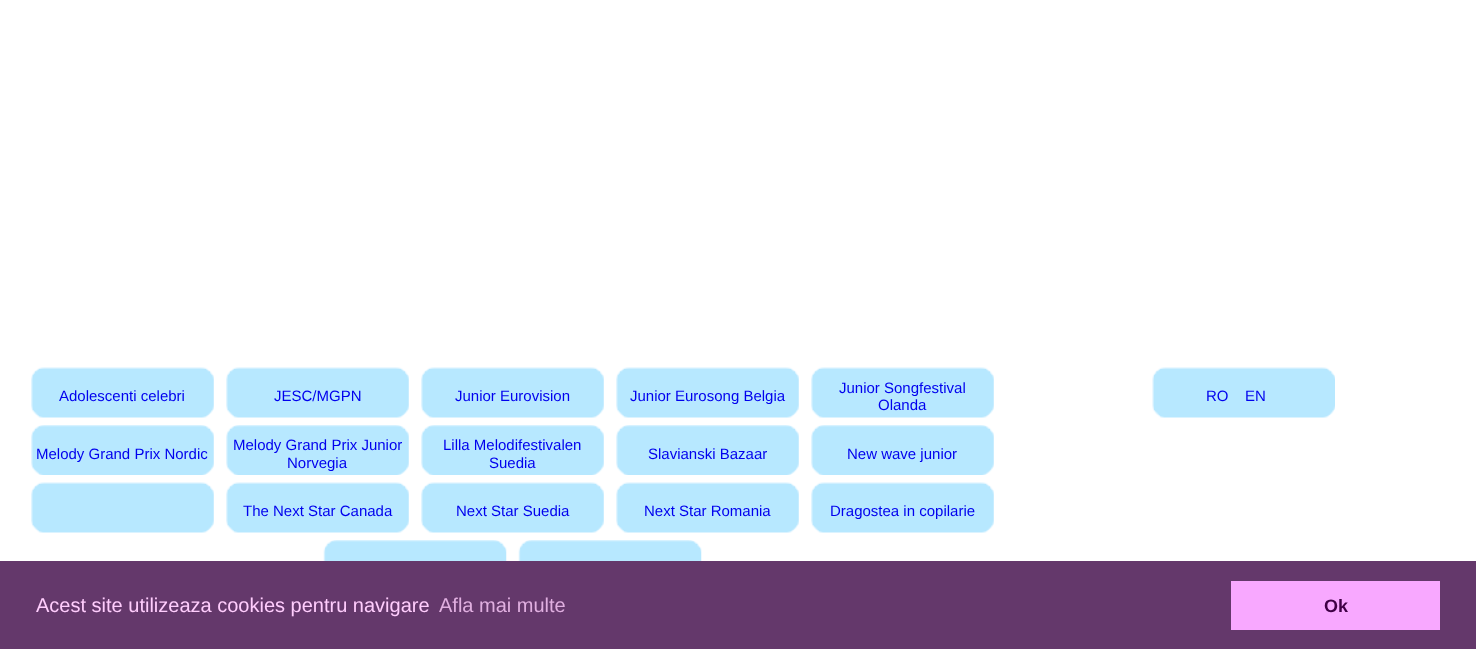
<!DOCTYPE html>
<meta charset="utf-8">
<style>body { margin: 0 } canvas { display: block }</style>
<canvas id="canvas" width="1476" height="649"></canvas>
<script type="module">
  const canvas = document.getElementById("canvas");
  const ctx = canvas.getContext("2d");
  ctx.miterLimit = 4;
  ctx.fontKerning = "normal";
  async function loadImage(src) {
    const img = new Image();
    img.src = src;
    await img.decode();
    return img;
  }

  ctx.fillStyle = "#ffffff";
  ctx.fillRect(0, 0, 1476, 649);
  ctx.drawImage(await loadImage("img1.png"), 31, 367, 183, 51);
  ctx.font = "15px Liberation Sans";
  ctx.fillStyle = "#0000ee";
  ctx.fillText("Adolescenti celebri", 59, 401);
  ctx.drawImage(await loadImage("img1.png"), 226, 367, 183, 51);
  ctx.fillText("JESC/MGPN", 274, 401);
  ctx.drawImage(await loadImage("img2.png"), 421, 367, 183, 51);
  ctx.fillText("Junior Eurovision", 455, 401);
  ctx.drawImage(await loadImage("img2.png"), 616, 367, 183, 51);
  ctx.fillText("Junior Eurosong Belgia", 630, 401);
  ctx.drawImage(await loadImage("img1.png"), 811, 367, 183, 51);
  ctx.fillText("Junior Songfestival", 839, 393);
  ctx.fillText("Olanda", 878, 410);
  ctx.drawImage(await loadImage("img3.png"), 31, 425, 183, 50);
  ctx.fillText("Melody Grand Prix Nordic", 36, 459);
  ctx.drawImage(await loadImage("img3.png"), 226, 425, 183, 50);
  ctx.fillText("Melody Grand Prix Junior", 233, 450);
  ctx.fillText("Norvegia", 287, 468);
  ctx.drawImage(await loadImage("img4.png"), 421, 425, 183, 50);
  ctx.fillText("Lilla Melodifestivalen", 443, 450);
  ctx.fillText("Suedia", 489, 468);
  ctx.drawImage(await loadImage("img4.png"), 616, 425, 183, 50);
  ctx.fillText("Slavianski Bazaar", 648, 459);
  ctx.drawImage(await loadImage("img3.png"), 811, 425, 183, 50);
  ctx.fillText("New wave junior", 847, 459);
  ctx.drawImage(await loadImage("img1.png"), 31, 482, 183, 51);
  ctx.drawImage(await loadImage("img1.png"), 226, 482, 183, 51);
  ctx.fillText("The Next Star Canada", 243, 516);
  ctx.drawImage(await loadImage("img2.png"), 421, 482, 183, 51);
  ctx.fillText("Next Star Suedia", 456, 516);
  ctx.drawImage(await loadImage("img2.png"), 616, 482, 183, 51);
  ctx.fillText("Next Star Romania", 644, 516);
  ctx.drawImage(await loadImage("img1.png"), 811, 482, 183, 51);
  ctx.fillText("Dragostea in copilarie", 830, 516);
  ctx.drawImage(await loadImage("img5.png"), 323, 540, 184, 21);
  ctx.drawImage(await loadImage("img6.png"), 518, 540, 184, 21);
  ctx.drawImage(await loadImage("img7.png"), 1152, 367, 183, 51);
  ctx.fillText("RO", 1206, 401);
  ctx.fillText("EN", 1245, 401);
  ctx.fillStyle = "#64386b";
  ctx.fillRect(0, 561, 1476, 88);
  ctx.font = "20px Liberation Sans";
  ctx.fillStyle = "#ffcdfd";
  ctx.fillText("Acest site utilizeaza cookies pentru navigare", 36, 612);
  ctx.fillStyle = "#e0afe0";
  ctx.fillText("Afla mai multe", 439, 612);
  ctx.fillStyle = "#f8a8ff";
  ctx.fillRect(1231, 581, 209, 49);
  ctx.font = "bold 18px Liberation Sans";
  ctx.fillStyle = "#3f0045";
  ctx.fillText("Ok", 1324, 612);
</script>
